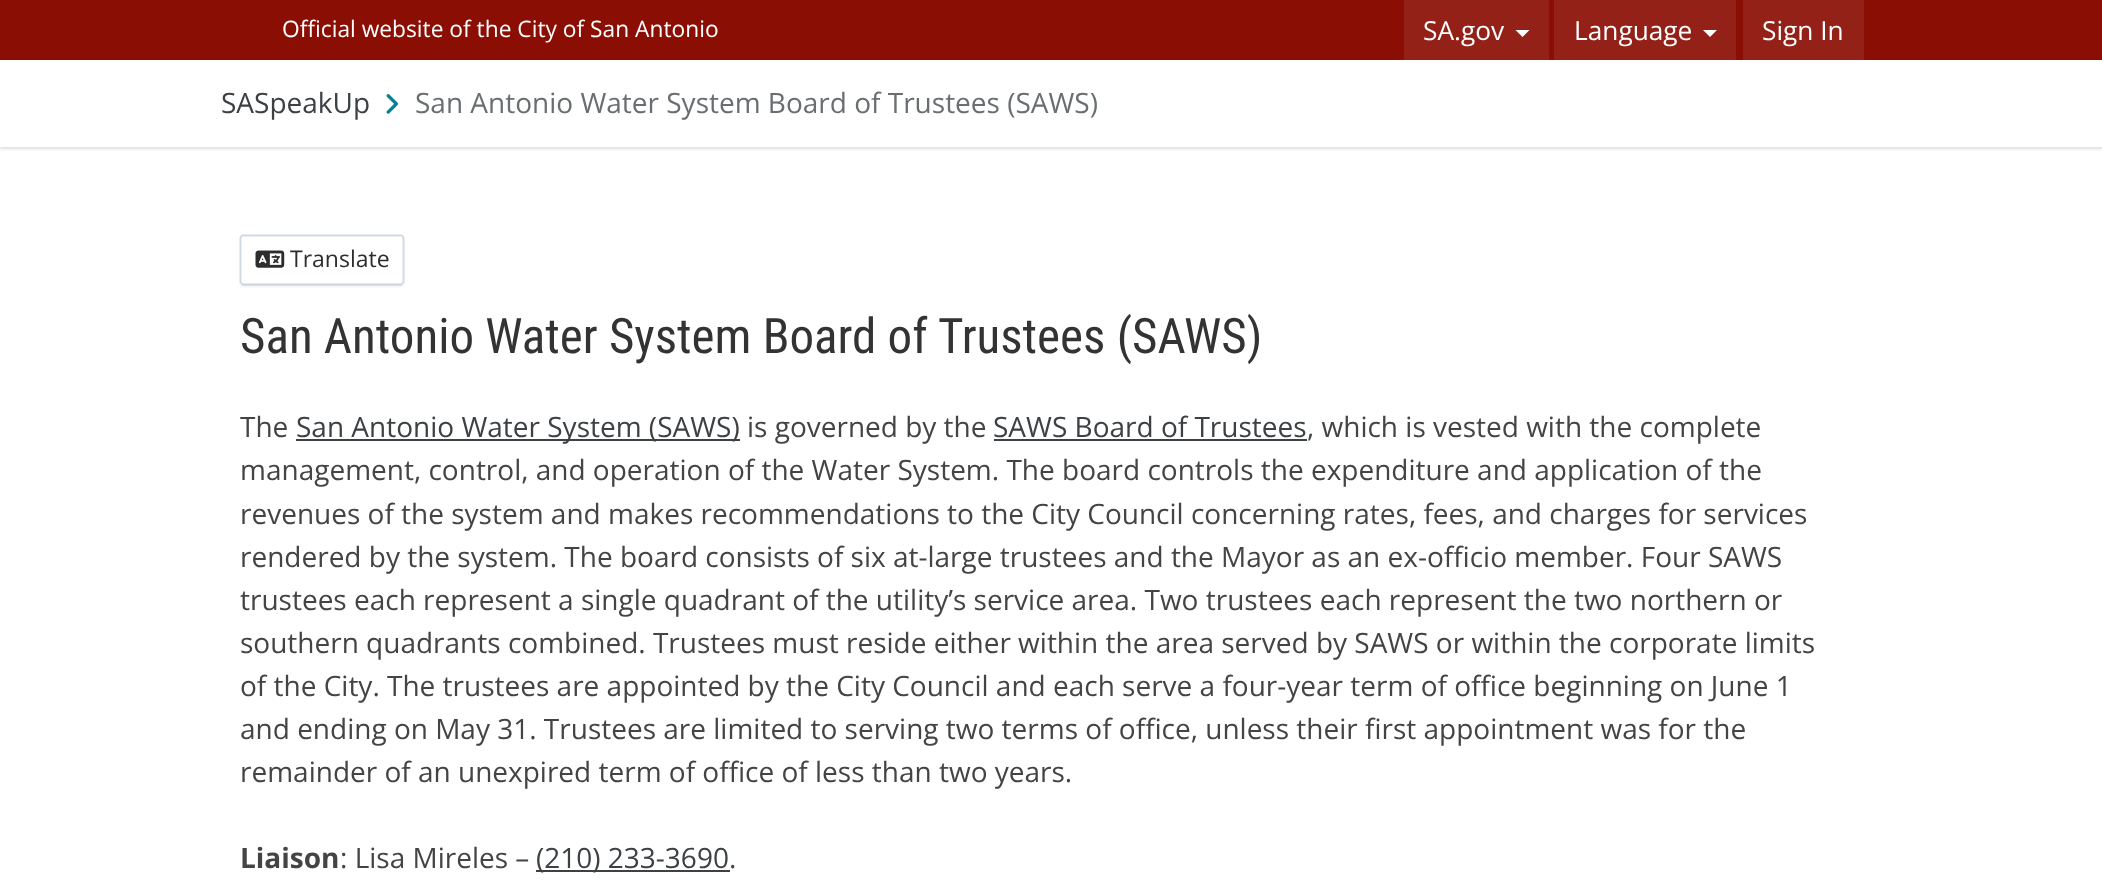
<!DOCTYPE html>
<meta charset="utf-8">
<style>body { margin: 0 } canvas { display: block }</style>
<canvas id="canvas" width="2102" height="887"></canvas>
<script type="module">
  const canvas = document.getElementById("canvas");
  const ctx = canvas.getContext("2d");
  ctx.miterLimit = 4;
  ctx.fontKerning = "normal";
  async function loadImage(src) {
    const img = new Image();
    img.src = src;
    await img.decode();
    return img;
  }

  ctx.fillStyle = "#ffffff";
  ctx.fillRect(0, 0, 2102, 887);
  ctx.fillStyle = "#8b0e04";
  ctx.fillRect(0, 0, 2102, 60);
  ctx.font = "22.75px Open Sans";
  ctx.fillStyle = "#ffffff";
  ctx.fillText("Official website of the City of San Antonio", 282, 37);
  ctx.fillStyle = "#942118";
  ctx.fillRect(1404, 0, 145, 60);
  ctx.font = "26.25px Open Sans";
  ctx.fillStyle = "#ffffff";
  ctx.fillText("SA.gov", 1423, 40);
  ctx.beginPath();
  ctx.moveTo(1515.5, 30);
  ctx.lineTo(1529.5, 30);
  ctx.lineTo(1522.5, 37);
  ctx.closePath();
  ctx.fill();
  ctx.fillStyle = "#942118";
  ctx.fillRect(1554, 0, 182, 60);
  ctx.fillStyle = "#ffffff";
  ctx.fillText("Language", 1574, 40);
  ctx.beginPath();
  ctx.moveTo(1703, 30);
  ctx.lineTo(1717, 30);
  ctx.lineTo(1710, 37);
  ctx.closePath();
  ctx.fill();
  ctx.fillStyle = "#942118";
  ctx.fillRect(1743, 0, 121, 60);
  ctx.fillStyle = "#ffffff";
  ctx.fillText("Sign In", 1762, 40);
  ctx.fillStyle = "#f2f2f2";
  ctx.beginPath();
  ctx.moveTo(0, 147);
  ctx.lineTo(0, 149);
  ctx.lineTo(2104, 149);
  ctx.lineTo(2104, 61);
  ctx.lineTo(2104, 147);
  ctx.closePath();
  ctx.fill();
  ctx.save();
  ctx.beginPath();
  ctx.rect(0, 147, 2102, 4);
  ctx.clip();
  ctx.fillStyle = "rgba(0, 0, 0, 0.05)";
  ctx.filter = "blur(2px)";
  ctx.beginPath();
  ctx.rect(0, 63, 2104, 88);
  ctx.fill();
  ctx.filter = "none";
  ctx.restore();
  ctx.font = "28px Open Sans";
  ctx.fillStyle = "#3c4144";
  ctx.fillText("SASpeakUp", 221, 113);
  ctx.drawImage(await loadImage("img1.png"), 386, 94, 12, 20);
  ctx.fillStyle = "#696f71";
  ctx.fillText("San Antonio Water System Board of Trustees (SAWS)", 415, 113);
  ctx.save();
  ctx.beginPath();
  ctx.moveTo(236, 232);
  ctx.lineTo(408, 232);
  ctx.lineTo(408, 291);
  ctx.lineTo(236, 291);
  ctx.closePath();
  ctx.moveTo(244, 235);
  ctx.lineTo(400, 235);
  ctx.bezierCurveTo(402, 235, 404, 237, 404, 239);
  ctx.lineTo(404, 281);
  ctx.bezierCurveTo(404, 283, 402, 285, 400, 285);
  ctx.lineTo(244, 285);
  ctx.bezierCurveTo(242, 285, 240, 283, 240, 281);
  ctx.lineTo(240, 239);
  ctx.bezierCurveTo(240, 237, 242, 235, 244, 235);
  ctx.closePath();
  ctx.clip("evenodd");
  ctx.fillStyle = "rgba(90, 90, 90, 0.1)";
  ctx.filter = "blur(1px)";
  ctx.beginPath();
  ctx.roundRect(240, 236, 164, 51, 4);
  ctx.fill();
  ctx.filter = "none";
  ctx.restore();
  ctx.beginPath();
  ctx.moveTo(402.5, 283.5);
  ctx.lineTo(401, 284.5);
  ctx.lineTo(243, 284.5);
  ctx.lineTo(241.5, 283.5);
  ctx.strokeStyle = "#cbd5dd";
  ctx.lineWidth = 1.8;
  ctx.stroke();
  ctx.beginPath();
  ctx.moveTo(241.5, 283.5);
  ctx.lineTo(240.5, 282);
  ctx.lineTo(240.5, 238);
  ctx.lineTo(241.5, 236);
  ctx.lineTo(243, 235.5);
  ctx.lineTo(401, 235.5);
  ctx.lineTo(402.5, 236);
  ctx.lineTo(403.5, 238);
  ctx.lineTo(403.5, 282);
  ctx.lineTo(402.5, 283.5);
  ctx.strokeStyle = "#d2dae1";
  ctx.stroke();
  ctx.drawImage(await loadImage("img2.png"), 255, 250, 30, 18);
  ctx.font = "23px Open Sans";
  ctx.fillStyle = "#2d2d2d";
  ctx.fillText("Translate", 290, 267);
  ctx.font = "49px Roboto Condensed";
  ctx.fillStyle = "#333333";
  ctx.fillText("San Antonio Water System Board of Trustees (SAWS)", 240, 353);
  ctx.font = "28px Open Sans";
  ctx.fillStyle = "#444444";
  ctx.fillText("The", 240, 437);
  ctx.fillStyle = "#3c4144";
  ctx.fillRect(296, 439, 444, 2);
  ctx.fillText("San Antonio Water System (SAWS)", 296, 437);
  ctx.fillStyle = "#444444";
  ctx.fillText("is governed by the", 747, 437);
  ctx.fillStyle = "#3c4144";
  ctx.fillText("SAWS Board of Trustees", 993, 437);
  ctx.fillRect(994, 439, 313, 2);
  ctx.fillStyle = "#444444";
  ctx.fillText(", which is vested with the complete", 1307, 437);
  ctx.fillText("management, control, and operation of the Water System. The board controls the expenditure and application of the", 240, 480);
  ctx.fillText("revenues of the system and makes recommendations to the City Council concerning rates, fees, and charges for services", 240, 524);
  ctx.fillText("rendered by the system. The board consists of six at-large trustees and the Mayor as an ex-officio member. Four SAWS", 240, 567);
  ctx.fillText("trustees each represent a single quadrant of the utility’s service area. Two trustees each represent the two northern or", 240, 610);
  ctx.fillText("southern quadrants combined. Trustees must reside either within the area served by SAWS or within the corporate limits", 240, 653);
  ctx.fillText("of the City. The trustees are appointed by the City Council and each serve a four-year term of office beginning on June 1", 240, 696);
  ctx.fillText("and ending on May 31. Trustees are limited to serving two terms of office, unless their first appointment was for the", 240, 739);
  ctx.fillText("remainder of an unexpired term of office of less than two years.", 240, 782);
  ctx.font = "bold 28px Open Sans";
  ctx.fillText("Liaison", 240, 868);
  ctx.font = "28px Open Sans";
  ctx.fillText(": Lisa Mireles –", 340, 868);
  ctx.fillStyle = "#3c4144";
  ctx.fillRect(536, 870, 194, 2);
  ctx.fillText("(210) 233-3690", 536, 868);
  ctx.fillStyle = "#444444";
  ctx.fillText(".", 729, 868);
</script>
